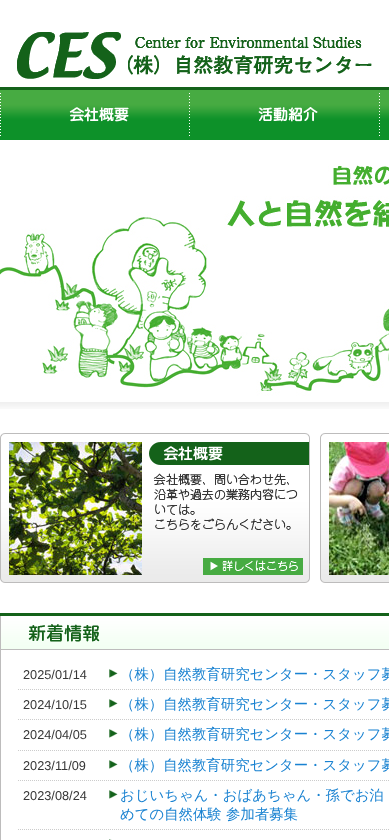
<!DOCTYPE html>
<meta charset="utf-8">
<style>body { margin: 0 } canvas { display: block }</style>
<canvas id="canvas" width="389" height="840"></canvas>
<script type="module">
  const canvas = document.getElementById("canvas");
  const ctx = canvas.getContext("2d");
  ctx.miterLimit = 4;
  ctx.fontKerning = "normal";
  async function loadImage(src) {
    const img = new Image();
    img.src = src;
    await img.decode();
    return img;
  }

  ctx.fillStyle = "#ffffff";
  ctx.fillRect(0, 0, 389, 840);
  ctx.drawImage(await loadImage("img1.png"), 0, 87, 389, 322);
  ctx.drawImage(await loadImage("img2.png"), 17, 32, 355, 47);
  ctx.drawImage(await loadImage("img3.png"), 0, 90, 190, 50);
  ctx.drawImage(await loadImage("img4.png"), 190, 90, 190, 50);
  ctx.drawImage(await loadImage("img5.png"), 380, 90, 9, 50);
  ctx.drawImage(await loadImage("img6.png"), 0, 140, 389, 261);
  ctx.drawImage(await loadImage("img7.png"), 0, 433, 310, 150);
  ctx.drawImage(await loadImage("img8.png"), 9, 442, 133, 133);
  ctx.drawImage(await loadImage("img9.png"), 320, 433, 69, 150);
  ctx.drawImage(await loadImage("img10.png"), 329, 442, 60, 133);
  ctx.drawImage(await loadImage("img11.png"), 0, 613, 389, 37);
  ctx.fillStyle = "#bdbcbc";
  ctx.fillRect(0, 650, 1, 190);
  ctx.beginPath();
  ctx.moveTo(18, 689.5);
  ctx.lineTo(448, 689.5);
  ctx.strokeStyle = "#cccccc";
  ctx.setLineDash([1, 1]);
  ctx.stroke();
  ctx.font = "12.75px Liberation Sans";
  ctx.fillStyle = "#373737";
  ctx.fillText("2025/01/14", 23, 679);
  ctx.drawImage(await loadImage("img12.png"), 109, 669, 9, 9);
  ctx.font = "500 14.4px WenQuanYi Zen Hei";
  ctx.fillStyle = "#1982d1";
  ctx.fillText("（株）自然教育研究センター・スタッフ募", 120, 679);
  ctx.beginPath();
  ctx.moveTo(18, 719.5);
  ctx.lineTo(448, 719.5);
  ctx.stroke();
  ctx.font = "12.75px Liberation Sans";
  ctx.fillStyle = "#373737";
  ctx.fillText("2024/10/15", 23, 709);
  ctx.drawImage(await loadImage("img12.png"), 109, 699, 9, 9);
  ctx.font = "500 14.4px WenQuanYi Zen Hei";
  ctx.fillStyle = "#1982d1";
  ctx.fillText("（株）自然教育研究センター・スタッフ募", 120, 709);
  ctx.beginPath();
  ctx.moveTo(18, 750.5);
  ctx.lineTo(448, 750.5);
  ctx.stroke();
  ctx.font = "12.75px Liberation Sans";
  ctx.fillStyle = "#373737";
  ctx.fillText("2024/04/05", 23, 739);
  ctx.drawImage(await loadImage("img12.png"), 109, 729, 9, 9);
  ctx.font = "500 14.4px WenQuanYi Zen Hei";
  ctx.fillStyle = "#1982d1";
  ctx.fillText("（株）自然教育研究センター・スタッフ募", 120, 739);
  ctx.beginPath();
  ctx.moveTo(18, 780.5);
  ctx.lineTo(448, 780.5);
  ctx.stroke();
  ctx.font = "12.75px Liberation Sans";
  ctx.fillStyle = "#373737";
  ctx.fillText("2023/11/09", 23, 770);
  ctx.drawImage(await loadImage("img12.png"), 109, 760, 9, 9);
  ctx.font = "500 14.4px WenQuanYi Zen Hei";
  ctx.fillStyle = "#1982d1";
  ctx.fillText("（株）自然教育研究センター・スタッフ募", 120, 770);
  ctx.beginPath();
  ctx.moveTo(18, 829.5);
  ctx.lineTo(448, 829.5);
  ctx.stroke();
  ctx.font = "12.75px Liberation Sans";
  ctx.fillStyle = "#373737";
  ctx.fillText("2023/08/24", 23, 800);
  ctx.drawImage(await loadImage("img12.png"), 109, 790, 9, 9);
  ctx.font = "500 14.4px WenQuanYi Zen Hei";
  ctx.fillStyle = "#1982d1";
  ctx.fillText("おじいちゃん・おばあちゃん・孫でお泊", 120, 800);
  ctx.fillText("めての自然体験 参加者募集", 120, 819);
  ctx.drawImage(await loadImage("img13.png"), 109, 839, 3, 1);
</script>
